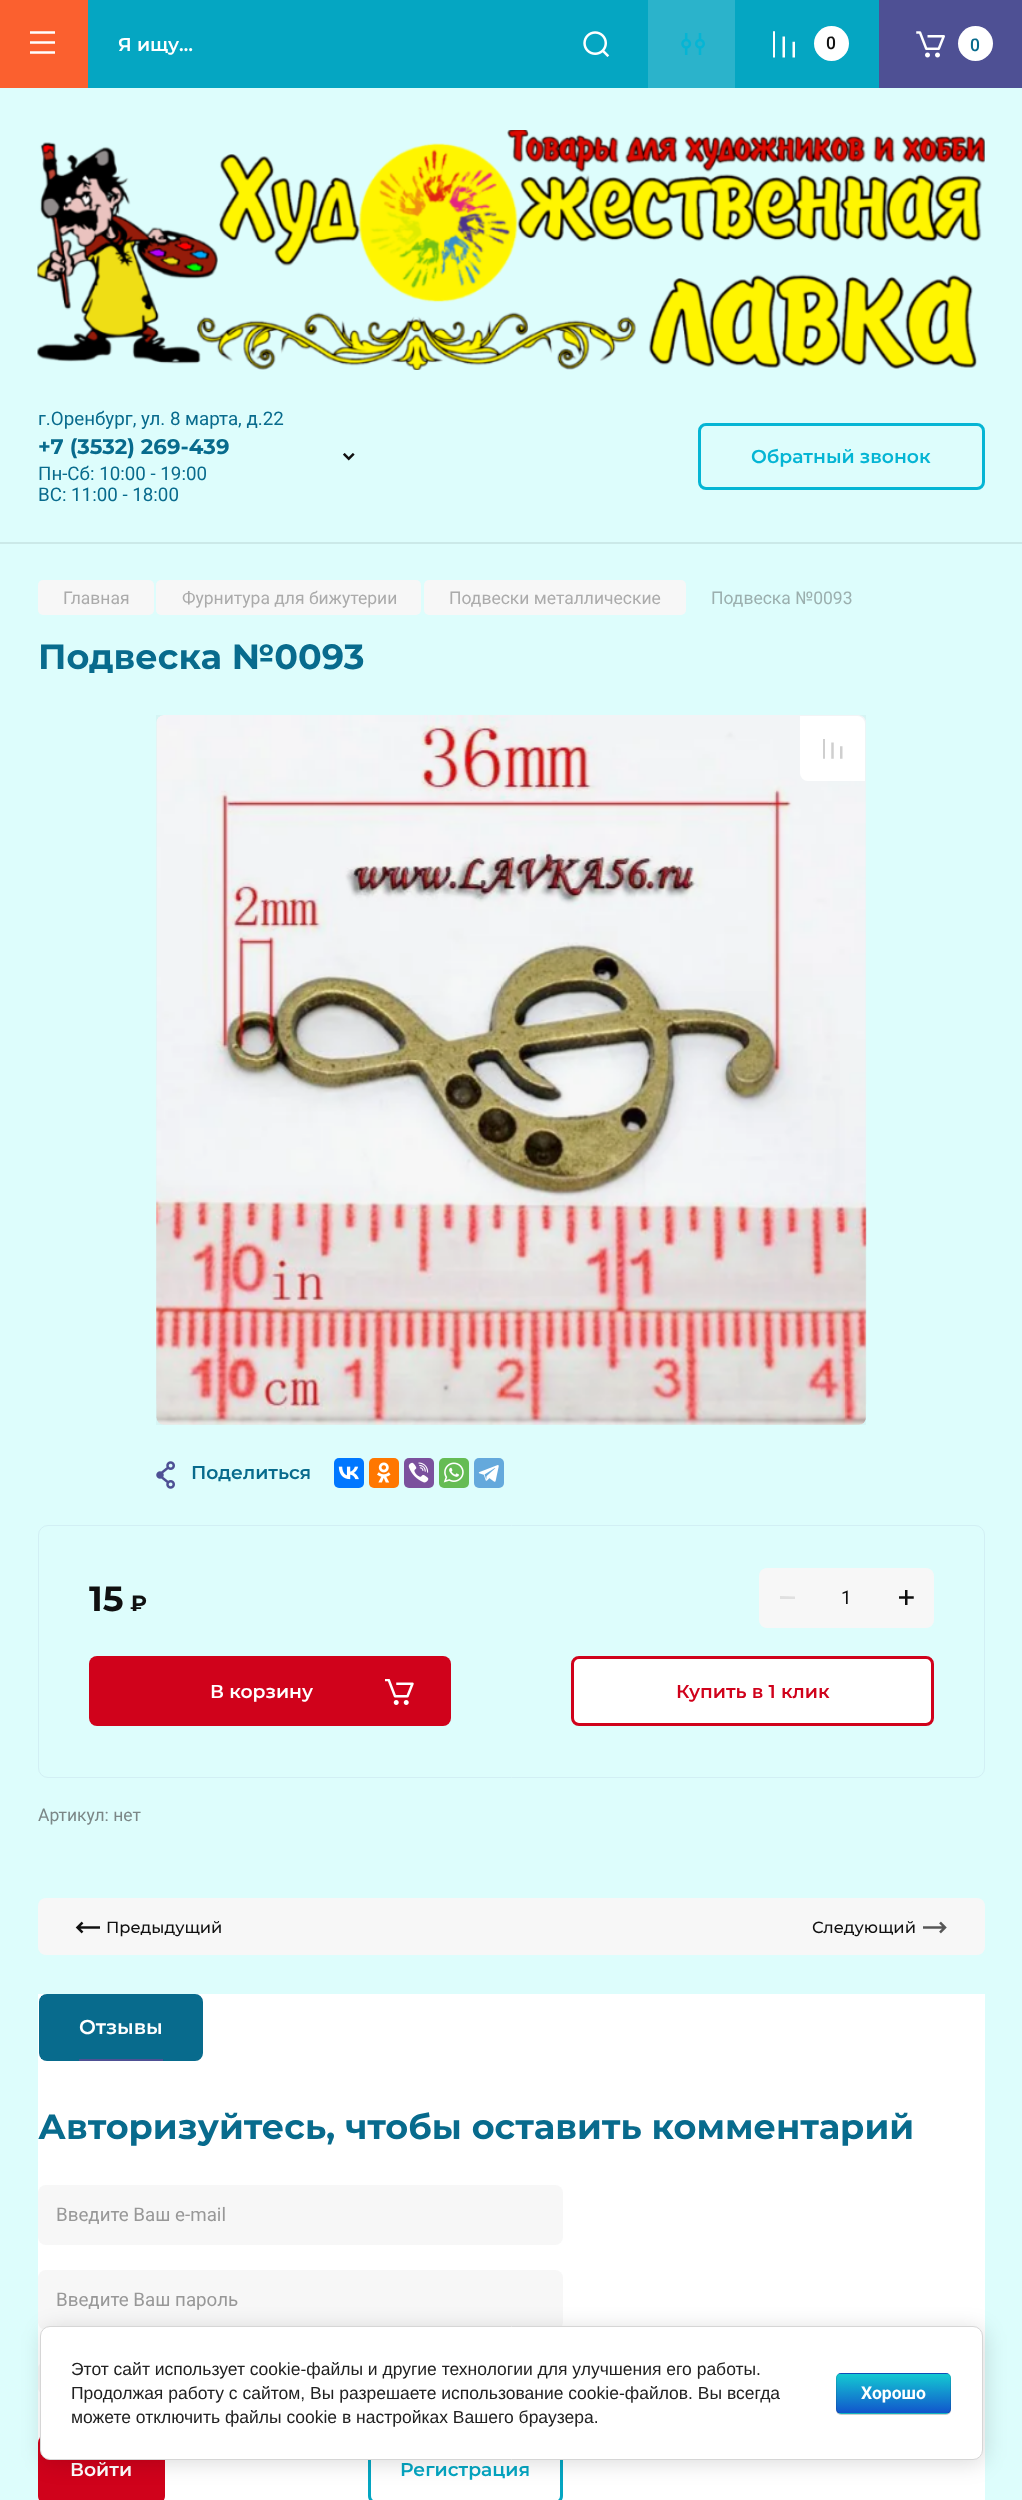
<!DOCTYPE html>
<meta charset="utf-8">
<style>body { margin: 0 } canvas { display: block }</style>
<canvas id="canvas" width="1022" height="2500"></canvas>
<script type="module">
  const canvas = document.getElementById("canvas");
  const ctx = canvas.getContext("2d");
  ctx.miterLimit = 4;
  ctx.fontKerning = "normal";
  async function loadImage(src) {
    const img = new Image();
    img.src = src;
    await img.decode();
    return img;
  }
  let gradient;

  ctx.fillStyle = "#ddfdfc";
  ctx.fillRect(0, 0, 1022, 2500);
  ctx.fillStyle = "#fb602f";
  ctx.fillRect(0, 0, 88, 88);
  ctx.drawImage(await loadImage("img1.png"), 30, 31, 25, 23);
  ctx.fillStyle = "#05a6c2";
  ctx.fillRect(88, 0, 560, 88);
  ctx.font = "600 18.75px Montserrat";
  ctx.fillStyle = "#ffffff";
  ctx.fillText("Я ищу…", 118, 51);
  ctx.drawImage(await loadImage("img2.png"), 583, 31, 27, 26);
  ctx.fillStyle = "#2bb3cb";
  ctx.fillRect(648, 0, 87, 88);
  ctx.drawImage(await loadImage("img3.png"), 681, 33, 24, 22);
  ctx.fillStyle = "#05a6c2";
  ctx.fillRect(735, 0, 144, 88);
  ctx.drawImage(await loadImage("img4.png"), 773, 31, 22, 27);
  ctx.fillStyle = "#ffffff";
  ctx.beginPath();
  ctx.arc(831.5, 43.5, 17.5, 0, Math.PI * 2);
  ctx.fill();
  ctx.font = "500 17.5px Roboto";
  ctx.fillStyle = "#101010";
  ctx.fillText("0", 826, 49);
  ctx.fillStyle = "#4e5094";
  ctx.fillRect(879, 0, 143, 88);
  ctx.drawImage(await loadImage("img5.png"), 916, 31, 29, 27);
  ctx.fillStyle = "#ffffff";
  ctx.beginPath();
  ctx.arc(975.5, 43.5, 17.5, 0, Math.PI * 2);
  ctx.fill();
  ctx.fillStyle = "#086b8d";
  ctx.fillText("0", 970, 51);
  ctx.fillStyle = "#cbe9e8";
  ctx.beginPath();
  ctx.moveTo(0, 542);
  ctx.lineTo(0, 544);
  ctx.lineTo(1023, 544);
  ctx.lineTo(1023, 89);
  ctx.lineTo(1022, 89);
  ctx.lineTo(1022, 542);
  ctx.closePath();
  ctx.fill();
  ctx.drawImage(await loadImage("img6.png"), 37, 130, 948, 240);
  ctx.font = "18.75px Roboto";
  ctx.fillStyle = "#086b8d";
  ctx.fillText("г.Оренбург, ул. 8 марта, д.22", 38, 425);
  ctx.font = "bold 21.25px Montserrat";
  ctx.fillText("+7 (3532) 269-439", 38, 454);
  ctx.font = "18.75px Roboto";
  ctx.fillText("Пн-Сб: 10:00 - 19:00", 38, 480);
  ctx.fillText("ВС: 11:00 - 18:00", 38, 501);
  ctx.drawImage(await loadImage("img7.png"), 343, 453, 12, 8);
  ctx.beginPath();
  ctx.roundRect(699.5, 424.5, 284, 64, 6.5);
  ctx.strokeStyle = "#05b5d4";
  ctx.lineWidth = 3;
  ctx.stroke();
  ctx.font = "600 18.75px Montserrat";
  ctx.fillStyle = "#05b5d4";
  ctx.fillText("Обратный звонок", 751, 463);
  ctx.fillStyle = "#f7f7f7";
  ctx.beginPath();
  ctx.roundRect(38, 580, 116, 35, 5);
  ctx.fill();
  ctx.font = "17.5px Roboto";
  ctx.fillStyle = "#ababab";
  ctx.fillText("Главная", 63, 604);
  ctx.fillStyle = "#f7f7f7";
  ctx.beginPath();
  ctx.roundRect(156, 580, 265, 35, 5);
  ctx.fill();
  ctx.fillStyle = "#ababab";
  ctx.fillText("Фурнитура для бижутерии", 182, 604);
  ctx.fillStyle = "#f7f7f7";
  ctx.beginPath();
  ctx.roundRect(424, 580, 262, 35, 5);
  ctx.fill();
  ctx.fillStyle = "#ababab";
  ctx.fillText("Подвески металлические", 449, 604);
  ctx.fillStyle = "#9bafae";
  ctx.fillText("Подвеска №0093", 711, 604);
  ctx.font = "bold 35px Montserrat";
  ctx.fillStyle = "#086b8d";
  ctx.fillText("Подвеска №0093", 38, 669);
  ctx.drawImage(await loadImage("img8.png"), 156, 715, 711, 710);
  ctx.fillStyle = "rgba(0, 0, 0, 0.03)";
  ctx.fillRect(156, 715, 710, 710);
  ctx.fillStyle = "#ffffff";
  ctx.beginPath();
  ctx.roundRect(800, 716, 65, 65, [0, 8, 0, 8]);
  ctx.fill();
  ctx.drawImage(await loadImage("img9.png"), 823, 739, 20, 20);
  ctx.drawImage(await loadImage("img10.png"), 156, 1461, 19, 28);
  ctx.font = "600 18.75px Montserrat";
  ctx.fillStyle = "#086b8d";
  ctx.fillText("Поделиться", 191, 1479);
  ctx.fillStyle = "#0077ff";
  ctx.beginPath();
  ctx.roundRect(334, 1458, 30, 30, 5);
  ctx.fill();
  ctx.drawImage(await loadImage("img11.png"), 338, 1466, 21, 14);
  ctx.fillStyle = "#ff7700";
  ctx.beginPath();
  ctx.roundRect(369, 1458, 30, 30, 5);
  ctx.fill();
  ctx.drawImage(await loadImage("img12.png"), 377, 1462, 14, 21);
  ctx.fillStyle = "#7b519d";
  ctx.beginPath();
  ctx.roundRect(404, 1458, 30, 30, 5);
  ctx.fill();
  ctx.drawImage(await loadImage("img13.png"), 408, 1462, 21, 21);
  ctx.fillStyle = "#65bc54";
  ctx.beginPath();
  ctx.roundRect(439, 1458, 30, 30, 5);
  ctx.fill();
  ctx.drawImage(await loadImage("img14.png"), 443, 1462, 21, 21);
  ctx.fillStyle = "#64a9dc";
  ctx.beginPath();
  ctx.roundRect(474, 1458, 30, 30, 5);
  ctx.fill();
  ctx.drawImage(await loadImage("img15.png"), 478, 1465, 21, 17);
  ctx.beginPath();
  ctx.roundRect(38.5, 1525.5, 946, 252, 9.5);
  ctx.strokeStyle = "#d2eff4";
  ctx.lineWidth = 1;
  ctx.stroke();
  ctx.font = "bold 35px Montserrat";
  ctx.fillStyle = "#101010";
  ctx.fillText("15", 89, 1611);
  ctx.font = "bold 22px Montserrat";
  ctx.fillText("₽", 130, 1611);
  ctx.fillStyle = "#f7f7f7";
  ctx.beginPath();
  ctx.roundRect(759, 1568, 175, 60, 8);
  ctx.fill();
  ctx.fillStyle = "#e0e0e0";
  ctx.beginPath();
  ctx.moveTo(795, 1599);
  ctx.lineTo(780, 1599);
  ctx.lineTo(780, 1596);
  ctx.lineTo(795, 1596.5);
  ctx.closePath();
  ctx.fill();
  ctx.font = "18.75px Roboto";
  ctx.fillStyle = "#101010";
  ctx.fillText("1", 841, 1604);
  ctx.drawImage(await loadImage("img16.png"), 899, 1590, 15, 15);
  ctx.fillStyle = "#d0021b";
  ctx.beginPath();
  ctx.roundRect(89, 1656, 362, 70, 8);
  ctx.fill();
  ctx.font = "600 18.75px Montserrat";
  ctx.fillStyle = "#ffffff";
  ctx.fillText("В корзину", 210, 1698);
  ctx.drawImage(await loadImage("img17.png"), 385, 1679, 29, 26);
  ctx.beginPath();
  ctx.roundRect(572.5, 1657.5, 360, 67, 6.5);
  ctx.fill();
  ctx.strokeStyle = "#d0021b";
  ctx.lineWidth = 3;
  ctx.stroke();
  ctx.fillStyle = "#d0021b";
  ctx.fillText("Купить в 1 клик", 676, 1698);
  ctx.font = "17.5px Roboto";
  ctx.fillStyle = "#7b8787";
  ctx.fillText("Артикул: нет", 38, 1821);
  ctx.fillStyle = "#f7f7f7";
  ctx.beginPath();
  ctx.roundRect(38, 1898, 473, 57, [8, 0, 0, 8]);
  ctx.fill();
  ctx.drawImage(await loadImage("img18.png"), 75, 1921, 25, 13);
  ctx.font = "500 16.25px Montserrat";
  ctx.fillStyle = "#101010";
  ctx.fillText("Предыдущий", 106, 1933);
  ctx.fillStyle = "#f7f7f7";
  ctx.beginPath();
  ctx.roundRect(511, 1898, 474, 57, [0, 8, 8, 0]);
  ctx.fill();
  ctx.fillStyle = "#101010";
  ctx.fillText("Следующий", 812, 1933);
  ctx.drawImage(await loadImage("img19.png"), 923, 1921, 24, 13);
  ctx.fillStyle = "#ffffff";
  ctx.fillRect(38, 1994, 947, 506);
  ctx.beginPath();
  ctx.roundRect(40.5, 1995.5, 161, 64, 6.5);
  ctx.strokeStyle = "#086b8d";
  ctx.stroke();
  ctx.fillStyle = "#086b8d";
  ctx.fillRect(41, 1996, 159, 63);
  ctx.font = "600 20px Montserrat";
  ctx.fillStyle = "#ffffff";
  ctx.fillText("Отзывы", 79, 2034);
  ctx.fillStyle = "#4e5094";
  ctx.fillRect(79, 2059, 84, 2);
  ctx.font = "bold 35px Montserrat";
  ctx.fillStyle = "#086b8d";
  ctx.fillText("Авторизуйтесь, чтобы оставить комментарий", 38, 2139);
  ctx.fillStyle = "#f7f7f7";
  ctx.beginPath();
  ctx.roundRect(38, 2185, 525, 60, 8);
  ctx.fill();
  ctx.font = "18.75px Roboto";
  ctx.fillStyle = "#989898";
  ctx.fillText("Введите Ваш e-mail", 56, 2221);
  ctx.fillStyle = "#f7f7f7";
  ctx.beginPath();
  ctx.roundRect(38, 2270, 525, 60, 8);
  ctx.fill();
  ctx.fillStyle = "#989898";
  ctx.fillText("Введите Ваш пароль", 56, 2306);
  ctx.fillStyle = "#f7f7f7";
  ctx.beginPath();
  ctx.roundRect(38, 2363, 30, 30, 5);
  ctx.fill();
  ctx.fillStyle = "#d0021b";
  ctx.beginPath();
  ctx.roundRect(38, 2435, 127, 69, 8);
  ctx.fill();
  ctx.font = "600 18.75px Montserrat";
  ctx.fillStyle = "#ffffff";
  ctx.fillText("Войти", 70, 2476);
  ctx.beginPath();
  ctx.roundRect(369.5, 2436.5, 192, 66, 6.5);
  ctx.strokeStyle = "#05a6c2";
  ctx.stroke();
  ctx.fillStyle = "#05a6c2";
  ctx.fillText("Регистрация", 400, 2476);
  ctx.fillStyle = "rgba(0, 0, 0, 0.14)";
  ctx.filter = "blur(11px)";
  ctx.beginPath();
  ctx.roundRect(43, 2329, 942, 134, 10);
  ctx.fill();
  ctx.filter = "none";
  ctx.fillStyle = "#ffffff";
  ctx.beginPath();
  ctx.roundRect(40.5, 2326.5, 942, 133, 9.5);
  ctx.fill();
  ctx.strokeStyle = "#d6d6d6";
  ctx.lineWidth = 1;
  ctx.stroke();
  ctx.font = "17.5px Liberation Sans";
  ctx.fillStyle = "#212121";
  ctx.fillText("Этот сайт использует cookie-файлы и другие технологии для улучшения его работы.", 71, 2375);
  ctx.fillText("Продолжая работу с сайтом, Вы разрешаете использование cookie-файлов. Вы всегда", 71, 2399);
  ctx.fillText("можете отключить файлы cookie в настройках Вашего браузера.", 71, 2423);
  ctx.fillStyle = "rgba(0, 0, 0, 0.2)";
  ctx.filter = "blur(0.5px)";
  ctx.beginPath();
  ctx.roundRect(836, 2374, 115, 41, 5);
  ctx.fill();
  ctx.filter = "none";
  ctx.save();
  ctx.beginPath();
  ctx.roundRect(836, 2373, 115, 41, 5);
  ctx.clip();
  gradient = ctx.createLinearGradient(894, 2335, 894, 2374);
  gradient.addColorStop(0, "#14c9d2");
  gradient.addColorStop(1, "#1155cc");
  ctx.fillStyle = gradient;
  ctx.fillRect(836, 2373, 115, 1);
  gradient = ctx.createLinearGradient(894, 2374, 894, 2413);
  gradient.addColorStop(0, "#14c9d2");
  gradient.addColorStop(1, "#1155cc");
  ctx.fillStyle = gradient;
  ctx.fillRect(836, 2374, 115, 39);
  gradient = ctx.createLinearGradient(894, 2413, 894, 2451);
  gradient.addColorStop(0, "#14c9d2");
  gradient.addColorStop(1, "#1155cc");
  ctx.fillStyle = gradient;
  ctx.fillRect(836, 2413, 115, 1);
  ctx.restore();
  ctx.beginPath();
  ctx.roundRect(836.5, 2373.5, 114, 40, 4.5);
  ctx.strokeStyle = "rgba(0, 0, 0, 0.1)";
  ctx.stroke();
  ctx.font = "bold 17.5px Roboto";
  ctx.fillStyle = "#ffffff";
  ctx.fillText("Хорошо", 861, 2399);
</script>
